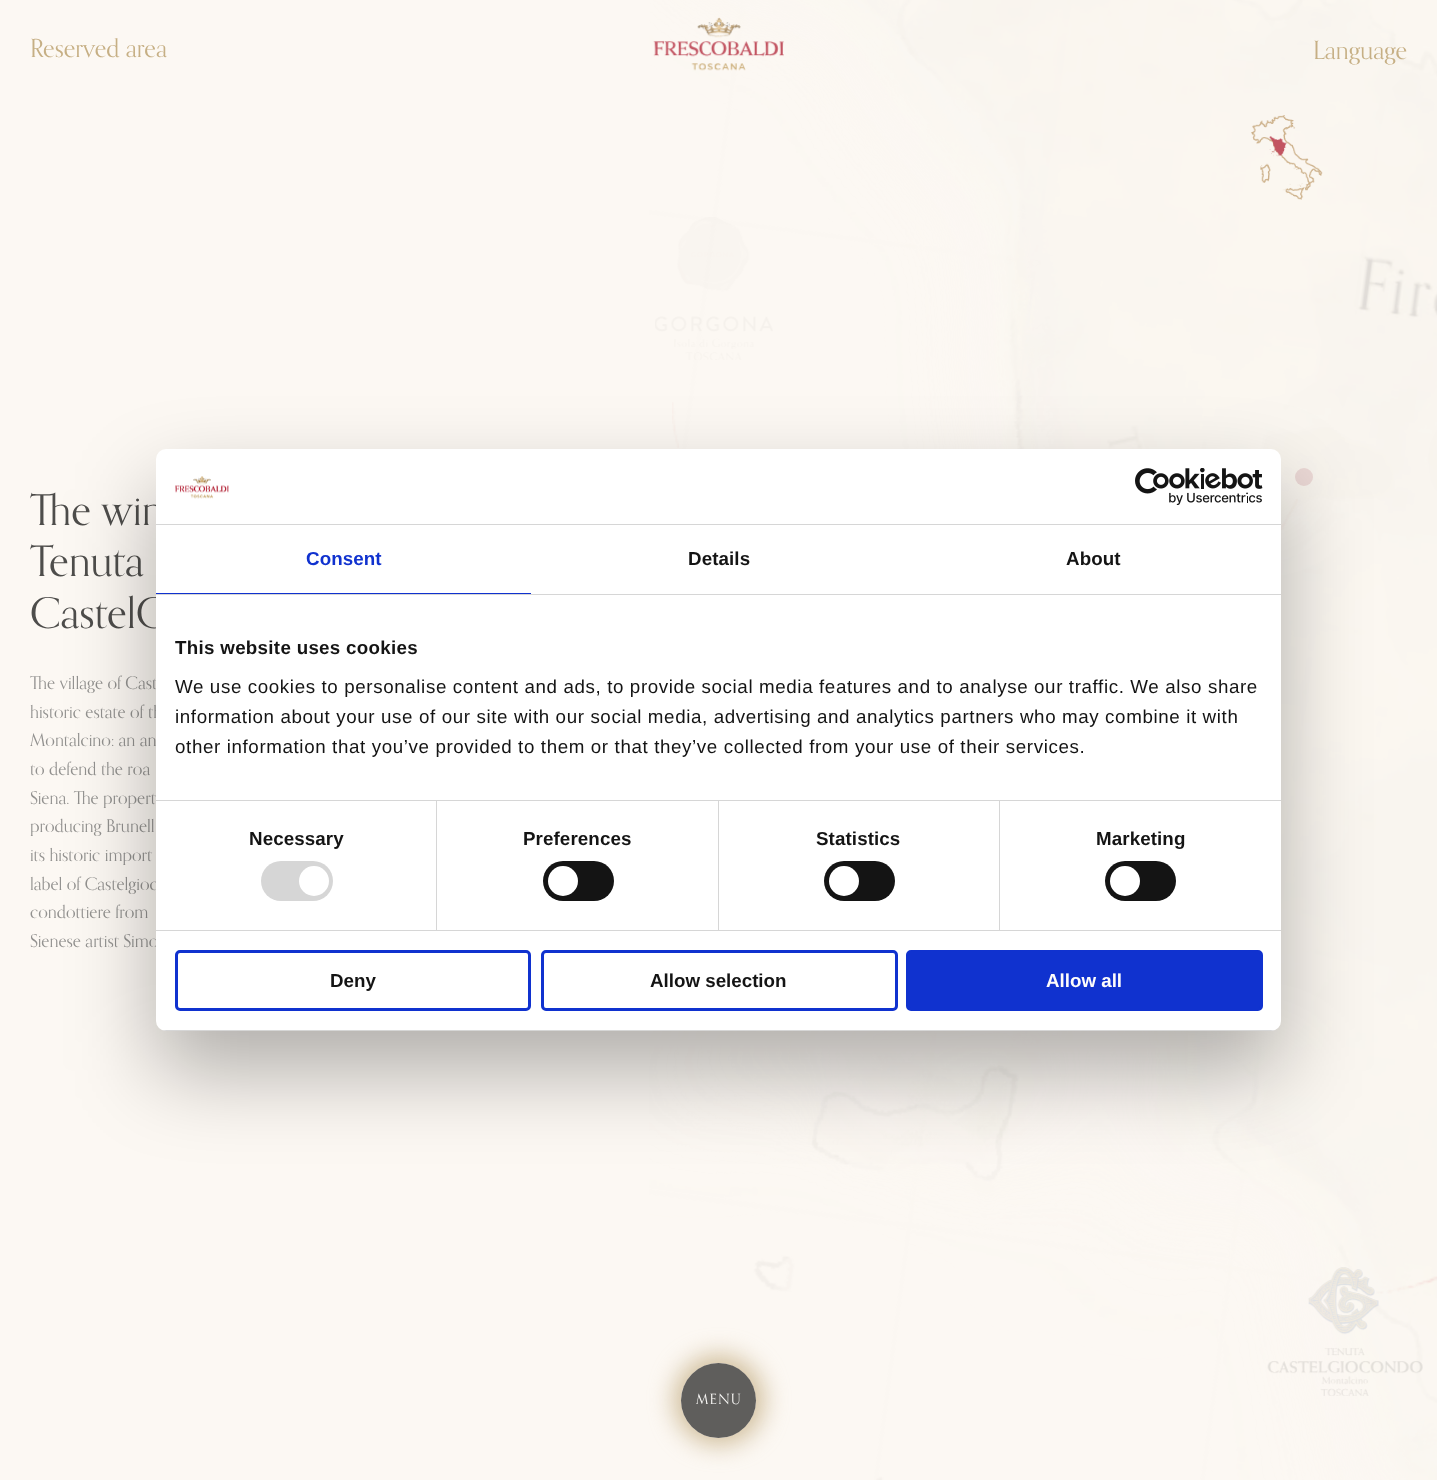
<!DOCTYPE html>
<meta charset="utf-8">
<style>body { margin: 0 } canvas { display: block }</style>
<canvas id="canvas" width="1437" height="1480"></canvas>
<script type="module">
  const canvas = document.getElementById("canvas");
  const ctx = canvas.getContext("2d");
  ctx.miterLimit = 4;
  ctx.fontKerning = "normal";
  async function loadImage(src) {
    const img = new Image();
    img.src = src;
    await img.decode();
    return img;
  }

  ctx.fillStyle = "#fcf8f3";
  ctx.fillRect(0, 0, 1437, 1480);
  ctx.font = "25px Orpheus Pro";
  ctx.fillStyle = "#c6af84";
  ctx.fillText("Reserved area", 30, 57);
  ctx.drawImage(await loadImage("img3.png"), 649, 0, 788, 1480);
  ctx.drawImage(await loadImage("img1.png"), 653, 17, 131, 54);
  ctx.fillText("Language", 1313, 59);
  ctx.drawImage(await loadImage("img2.png"), 1251, 115, 72, 85);
  ctx.font = "42.5px Orpheus Pro";
  ctx.fillStyle = "#4e4d4b";
  ctx.fillText("The win", 30, 525);
  ctx.fillText("Tenuta", 30, 576);
  ctx.fillText("CastelG", 30, 628);
  ctx.font = "17.5px Orpheus Pro";
  ctx.fillStyle = "#92918f";
  ctx.fillText("The village of Cast", 30, 689);
  ctx.fillText("historic estate of th", 30, 718);
  ctx.fillText("Montalcino: an an", 30, 746);
  ctx.fillText("to defend the roa", 30, 775);
  ctx.fillText("Siena. The propert", 30, 804);
  ctx.fillText("producing Brunell", 30, 832);
  ctx.fillText("its historic import", 30, 861);
  ctx.fillText("label of Castelgioc", 30, 890);
  ctx.fillText("condottiere from", 30, 918);
  ctx.fillText("Sienese artist Simo", 30, 947);
  ctx.drawImage(await loadImage("img4.png"), 655, 217, 118, 143);
  ctx.drawImage(await loadImage("img5.png"), 672, 402, 7, 46);
  ctx.fillStyle = "#ebd8d5";
  ctx.beginPath();
  ctx.arc(1304, 477, 9, 0, Math.PI * 2);
  ctx.fill();
  ctx.drawImage(await loadImage("img6.png"), 1281, 499, 17, 31);
  ctx.drawImage(await loadImage("img8.png"), 1371, 1276, 66, 19);
  ctx.drawImage(await loadImage("img7.png"), 1267, 1267, 156, 129);
  ctx.save();
  ctx.beginPath();
  ctx.moveTo(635, 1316);
  ctx.lineTo(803, 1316);
  ctx.lineTo(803, 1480);
  ctx.lineTo(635, 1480);
  ctx.closePath();
  ctx.moveTo(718.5, 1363);
  ctx.bezierCurveTo(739, 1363, 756, 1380, 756, 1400.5);
  ctx.bezierCurveTo(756, 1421, 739, 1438, 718.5, 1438);
  ctx.bezierCurveTo(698, 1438, 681, 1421, 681, 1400.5);
  ctx.bezierCurveTo(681, 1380, 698, 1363, 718.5, 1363);
  ctx.closePath();
  ctx.clip("evenodd");
  ctx.fillStyle = "rgba(198, 175, 132, 0.8)";
  ctx.filter = "blur(12.5px)";
  ctx.beginPath();
  ctx.roundRect(674, 1355, 90, 90, 45);
  ctx.fill();
  ctx.filter = "none";
  ctx.restore();
  ctx.fillStyle = "rgba(78, 77, 75, 0.9)";
  ctx.beginPath();
  ctx.arc(718.5, 1400.5, 37.5, 0, Math.PI * 2);
  ctx.fill();
  ctx.letterSpacing = "1.5px";
  ctx.font = "14px Orpheus Pro";
  ctx.fillStyle = "#fefdfb";
  ctx.fillText("MENU", 696, 1404);
  ctx.fillStyle = "rgba(0, 0, 0, 0.3)";
  ctx.filter = "blur(42.5px)";
  ctx.beginPath();
  ctx.roundRect(156, 489, 1125, 582, 10);
  ctx.fill();
  ctx.filter = "none";
  ctx.fillStyle = "#ffffff";
  ctx.beginPath();
  ctx.roundRect(156, 449, 1125, 582, 10);
  ctx.fill();
  ctx.fillStyle = "#d6d6d6";
  ctx.fillRect(156, 524, 1125, 1);
  ctx.drawImage(await loadImage("img9.png"), 175, 476, 54, 23);
  ctx.drawImage(await loadImage("img10.png"), 1135, 468, 128, 37);
  ctx.fillRect(156, 594, 1125, 1);
  ctx.fillStyle = "#1032cf";
  ctx.fillRect(156, 593, 375, 1);
  ctx.letterSpacing = "0.1px";
  ctx.font = "bold 18.75px Liberation Sans";
  ctx.fillText("Consent", 306, 565);
  ctx.fillStyle = "#141414";
  ctx.fillText("Details", 688, 565);
  ctx.fillText("About", 1066, 565);
  ctx.fillStyle = "#d6d6d6";
  ctx.fillRect(156, 800, 1125, 1);
  ctx.letterSpacing = "0.3px";
  ctx.fillStyle = "#141414";
  ctx.fillText("This website uses cookies", 175, 654);
  ctx.letterSpacing = "0.62px";
  ctx.font = "18.75px Liberation Sans";
  ctx.fillText("We use cookies to personalise content and ads, to provide social media features and to analyse our traffic. We also share", 175, 693);
  ctx.fillText("information about your use of our site with our social media, advertising and analytics partners who may combine it with", 175, 723);
  ctx.fillText("other information that you’ve provided to them or that they’ve collected from your use of their services.", 175, 753);
  ctx.fillStyle = "#d6d6d6";
  ctx.fillRect(156, 930, 1125, 1);
  ctx.fillRect(436, 801, 1, 129);
  ctx.letterSpacing = "0.1px";
  ctx.font = "bold 18.75px Liberation Sans";
  ctx.fillStyle = "#141414";
  ctx.fillText("Necessary", 249, 845);
  ctx.fillStyle = "#d6d6d6";
  ctx.beginPath();
  ctx.roundRect(261, 861, 72, 40, 20);
  ctx.fill();
  ctx.fillStyle = "#ffffff";
  ctx.beginPath();
  ctx.arc(314, 881, 15, 0, Math.PI * 2);
  ctx.fill();
  ctx.fillStyle = "#d6d6d6";
  ctx.fillRect(718, 801, 1, 129);
  ctx.fillStyle = "#141414";
  ctx.fillText("Preferences", 523, 845);
  ctx.beginPath();
  ctx.roundRect(543, 861, 71, 40, 20);
  ctx.fill();
  ctx.fillStyle = "#ffffff";
  ctx.beginPath();
  ctx.arc(563, 881, 15, 0, Math.PI * 2);
  ctx.fill();
  ctx.fillStyle = "#d6d6d6";
  ctx.fillRect(999, 801, 1, 129);
  ctx.fillStyle = "#141414";
  ctx.fillText("Statistics", 816, 845);
  ctx.beginPath();
  ctx.roundRect(824, 861, 71, 40, 20);
  ctx.fill();
  ctx.fillStyle = "#ffffff";
  ctx.beginPath();
  ctx.arc(844, 881, 15, 0, Math.PI * 2);
  ctx.fill();
  ctx.fillStyle = "#141414";
  ctx.fillText("Marketing", 1096, 845);
  ctx.beginPath();
  ctx.roundRect(1105, 861, 71, 40, 20);
  ctx.fill();
  ctx.fillStyle = "#ffffff";
  ctx.beginPath();
  ctx.arc(1125, 881, 15, 0, Math.PI * 2);
  ctx.fill();
  ctx.save();
  ctx.beginPath();
  ctx.roundRect(156, 449, 1125, 582, 10);
  ctx.clip();
  ctx.fillStyle = "#d6d6d6";
  ctx.fillRect(156, 1030, 1125, 1);
  ctx.restore();
  ctx.beginPath();
  ctx.roundRect(176.5, 951.5, 353, 58, 3.5);
  ctx.strokeStyle = "#1032cf";
  ctx.lineWidth = 3;
  ctx.stroke();
  ctx.letterSpacing = "0px";
  ctx.fillStyle = "#141414";
  ctx.fillText("Deny", 330, 987);
  ctx.beginPath();
  ctx.roundRect(542.5, 951.5, 354, 58, 3.5);
  ctx.stroke();
  ctx.fillText("Allow selection", 650, 987);
  ctx.fillStyle = "#1032cf";
  ctx.beginPath();
  ctx.roundRect(907.5, 951.5, 354, 58, 3.5);
  ctx.fill();
  ctx.stroke();
  ctx.fillStyle = "#fefdfb";
  ctx.fillText("Allow all", 1046, 987);
</script>
